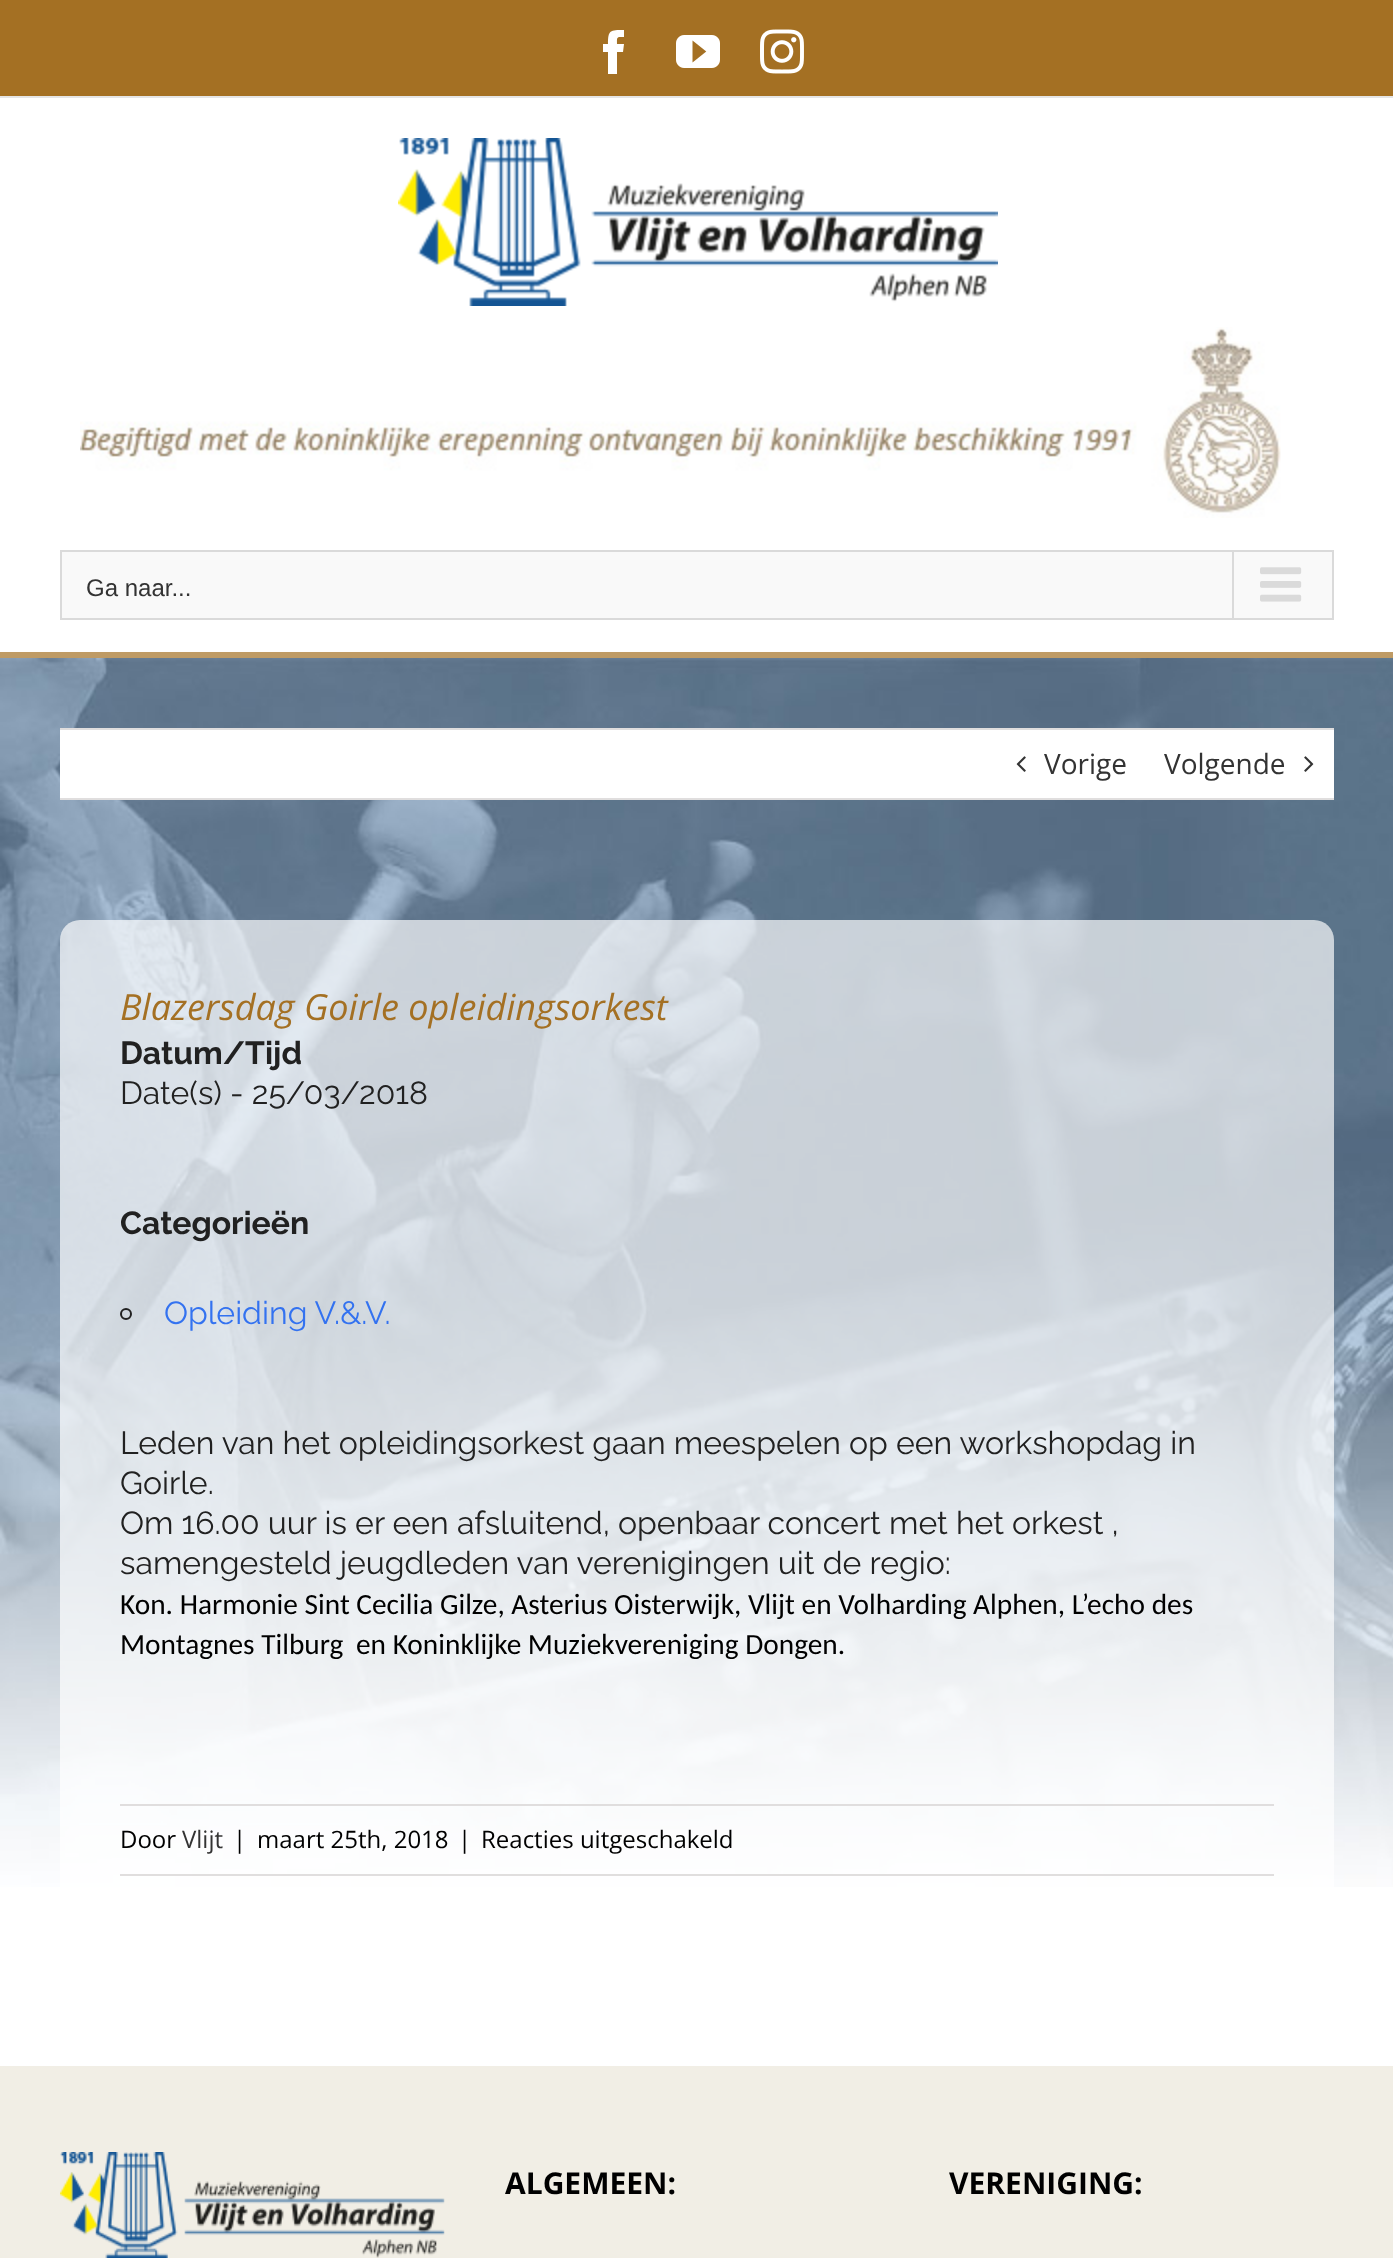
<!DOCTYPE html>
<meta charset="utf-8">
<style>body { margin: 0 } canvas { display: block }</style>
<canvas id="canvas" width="1393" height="2258"></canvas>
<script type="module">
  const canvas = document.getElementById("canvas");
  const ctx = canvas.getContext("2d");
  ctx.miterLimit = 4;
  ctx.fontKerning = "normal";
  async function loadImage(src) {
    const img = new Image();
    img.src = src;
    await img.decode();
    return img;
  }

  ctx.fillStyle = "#ffffff";
  ctx.fillRect(0, 0, 1393, 2258);
  ctx.fillStyle = "#a47023";
  ctx.fillRect(0, 0, 1393, 96);
  ctx.fillStyle = "#e5e5e5";
  ctx.fillRect(0, 96, 1393, 2);
  ctx.fillStyle = "#ffffff";
  ctx.beginPath();
  ctx.moveTo(617, 74);
  ctx.lineTo(608, 74);
  ctx.lineTo(608, 52);
  ctx.lineTo(603, 52);
  ctx.lineTo(603, 44);
  ctx.lineTo(608, 44);
  ctx.bezierCurveTo(608, 30, 610, 30, 624, 30);
  ctx.lineTo(624, 37);
  ctx.bezierCurveTo(616, 37, 617, 37, 617, 44);
  ctx.lineTo(624, 44);
  ctx.lineTo(623, 52);
  ctx.lineTo(617, 52);
  ctx.closePath();
  ctx.fill();
  ctx.drawImage(await loadImage("img1.png"), 676, 35, 44, 33);
  ctx.drawImage(await loadImage("img2.png"), 760, 29, 44, 45);
  ctx.fillStyle = "#bf9b65";
  ctx.fillRect(0, 652, 1393, 6);
  ctx.drawImage(await loadImage("img3.png"), 398, 138, 600, 168);
  ctx.drawImage(await loadImage("img4.png"), 80, 327, 1201, 191);
  ctx.fillStyle = "#f9f9f9";
  ctx.beginPath();
  ctx.rect(61, 551, 1272, 68);
  ctx.fill();
  ctx.strokeStyle = "#dadada";
  ctx.lineWidth = 2;
  ctx.stroke();
  ctx.font = "24px Liberation Sans";
  ctx.fillStyle = "#333333";
  ctx.fillText("Ga naar...", 86, 596);
  ctx.fillStyle = "#dadada";
  ctx.fillRect(1232, 552, 2, 66);
  ctx.drawImage(await loadImage("img5.png"), 1260, 567, 42, 35);
  ctx.drawImage(await loadImage("img6.png"), 0, 658, 1393, 1229);
  ctx.fillStyle = "#ffffff";
  ctx.fillRect(60, 730, 1274, 68);
  ctx.fillStyle = "#e0dede";
  ctx.fillRect(60, 728, 1274, 2);
  ctx.fillRect(60, 798, 1274, 2);
  ctx.drawImage(await loadImage("img7.png"), 1016, 756, 10, 16);
  ctx.font = "28px Open Sans";
  ctx.fillStyle = "#333333";
  ctx.fillText("Vorige", 1044, 774);
  ctx.fillText("Volgende", 1164, 774);
  ctx.drawImage(await loadImage("img8.png"), 1304, 756, 10, 16);
  ctx.fillStyle = "rgba(255, 255, 255, 0.68)";
  ctx.beginPath();
  ctx.roundRect(60, 920, 1274, 1016, 20);
  ctx.fill();
  ctx.font = "italic 36px Open Sans";
  ctx.fillStyle = "#a47023";
  ctx.fillText("Blazersdag Goirle opleidingsorkest", 120, 1020);
  ctx.font = "bold 32px Raleway";
  ctx.fillStyle = "#212121";
  ctx.fillText("Datum/Tijd", 120, 1064);
  ctx.font = "32px Raleway";
  ctx.fillText("Date(s) - 25/03/2018", 120, 1104);
  ctx.font = "bold 32px Raleway";
  ctx.fillText("Categorieën", 120, 1234);
  ctx.beginPath();
  ctx.arc(126, 1314, 5, 0, Math.PI * 2);
  ctx.strokeStyle = "#212121";
  ctx.stroke();
  ctx.font = "32px Raleway";
  ctx.fillStyle = "#3372f0";
  ctx.fillText("Opleiding V.&.V.", 164, 1324);
  ctx.fillStyle = "#212121";
  ctx.fillText("Leden van het opleidingsorkest gaan meespelen op een workshopdag in", 120, 1454);
  ctx.fillText("Goirle.", 120, 1494);
  ctx.fillText("Om 16.00 uur is er een afsluitend, openbaar concert met het orkest ,", 120, 1534);
  ctx.fillText("samengesteld jeugdleden van verenigingen uit de regio:", 120, 1574);
  ctx.font = "29.35px Carlito";
  ctx.fillStyle = "#000000";
  ctx.fillText("Kon. Harmonie Sint Cecilia Gilze, Asterius Oisterwijk, Vlijt en Volharding Alphen, L’echo des", 120, 1614);
  ctx.fillText("Montagnes Tilburg", 120, 1654);
  ctx.fillText("en Koninklijke Muziekvereniging Dongen.", 356, 1654);
  ctx.fillStyle = "#e0dede";
  ctx.fillRect(120, 1804, 1154, 2);
  ctx.fillRect(120, 1874, 1154, 2);
  ctx.font = "24px Open Sans";
  ctx.fillStyle = "#000000";
  ctx.fillText("Door", 120, 1848);
  ctx.fillStyle = "#333333";
  ctx.fillText("Vlijt", 182, 1848);
  ctx.fillStyle = "#000000";
  ctx.fillText("|", 233, 1848);
  ctx.fillText("maart 25th, 2018", 257, 1848);
  ctx.fillText("|", 458, 1848);
  ctx.fillText("Reacties uitgeschakeld", 481, 1848);
  ctx.fillStyle = "#f1eee5";
  ctx.fillRect(0, 2066, 1393, 192);
  ctx.drawImage(await loadImage("img9.png"), 60, 2152, 385, 106);
  ctx.font = "bold 30px Open Sans";
  ctx.fillStyle = "#000000";
  ctx.fillText("ALGEMEEN:", 505, 2194);
  ctx.fillText("VERENIGING:", 949, 2194);
</script>
